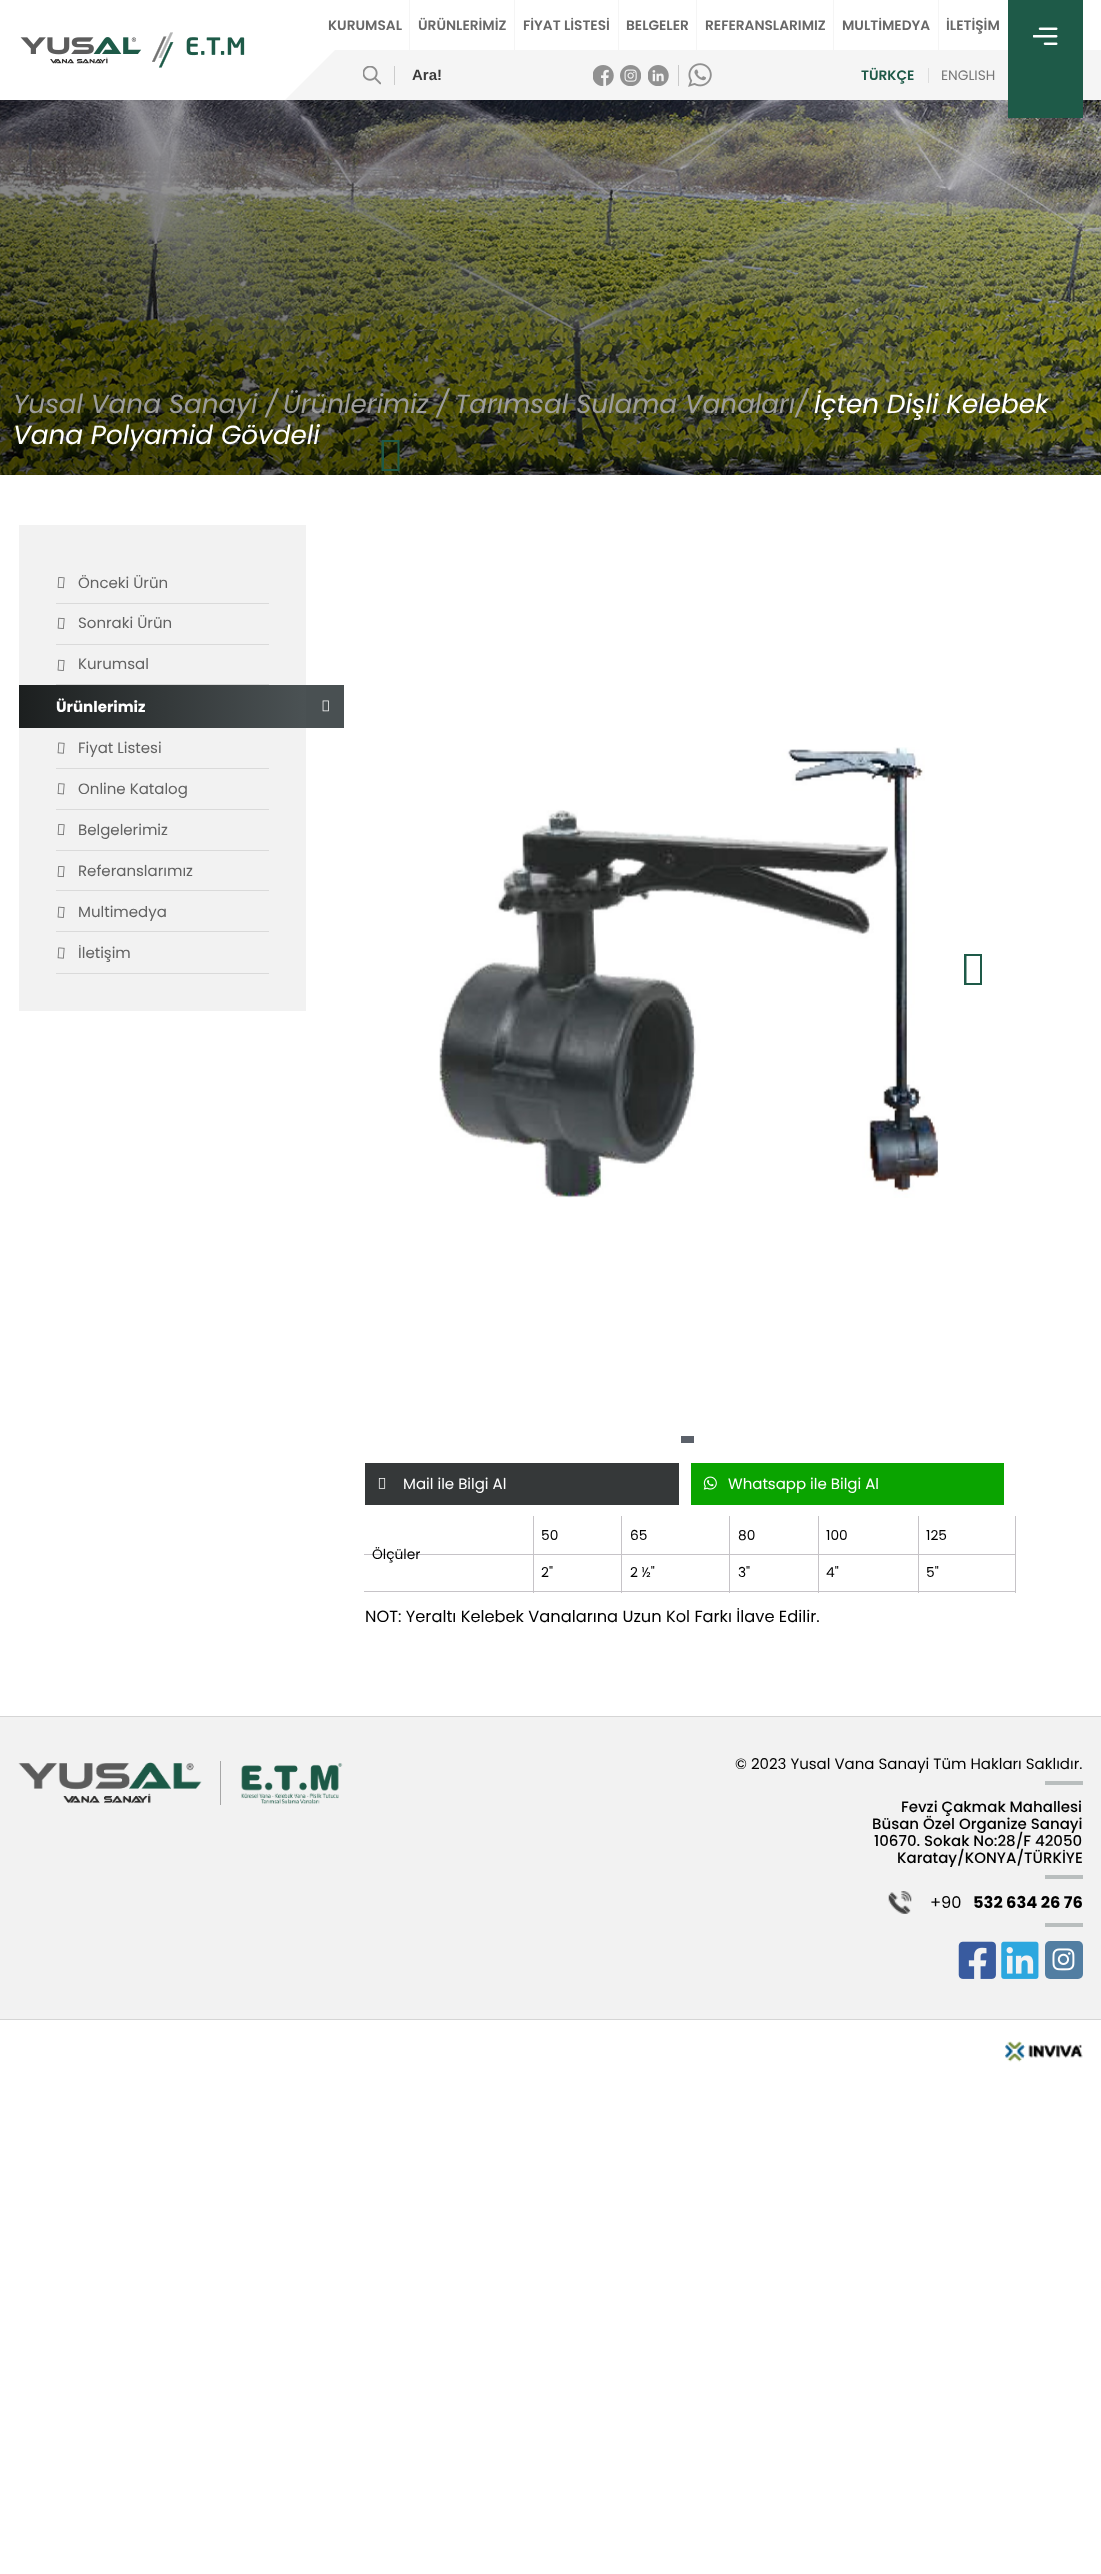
<!DOCTYPE html>
<meta charset="utf-8">
<style>body { margin: 0 } canvas { display: block }</style>
<canvas id="canvas" width="1101" height="2574"></canvas>
<script type="module">
  const canvas = document.getElementById("canvas");
  const ctx = canvas.getContext("2d");
  ctx.miterLimit = 4;
  ctx.fontKerning = "normal";
  async function loadImage(src) {
    const img = new Image();
    img.src = src;
    await img.decode();
    return img;
  }
  let gradient;

  ctx.fillStyle = "#ffffff";
  ctx.fillRect(0, 0, 1101, 2574);
  ctx.drawImage(await loadImage("img1.png"), 20, 32, 225, 36);
  ctx.fillStyle = "#f5f5f5";
  ctx.fillRect(409, 0, 1, 50);
  ctx.font = "600 13.75px Poppins";
  ctx.fillStyle = "#686868";
  ctx.fillText("KURUMSAL", 328, 30);
  ctx.fillStyle = "#f5f5f5";
  ctx.fillRect(514, 0, 1, 50);
  ctx.fillStyle = "#686868";
  ctx.fillText("ÜRÜNLERİMİZ", 418, 30);
  ctx.fillStyle = "#f5f5f5";
  ctx.fillRect(618, 0, 1, 50);
  ctx.fillStyle = "#686868";
  ctx.fillText("FİYAT LİSTESİ", 523, 30);
  ctx.fillStyle = "#f5f5f5";
  ctx.fillRect(696, 0, 1, 50);
  ctx.fillStyle = "#686868";
  ctx.fillText("BELGELER", 626, 30);
  ctx.fillStyle = "#f5f5f5";
  ctx.fillRect(833, 0, 1, 50);
  ctx.fillStyle = "#686868";
  ctx.fillText("REFERANSLARIMIZ", 705, 30);
  ctx.fillStyle = "#f5f5f5";
  ctx.fillRect(938, 0, 1, 50);
  ctx.fillStyle = "#686868";
  ctx.fillText("MULTİMEDYA", 842, 30);
  ctx.fillText("İLETİŞİM", 946, 30);
  ctx.fillStyle = "#f5f5f5";
  ctx.fillRect(285, 50, 723, 50);
  ctx.fillStyle = "#ffffff";
  ctx.beginPath();
  ctx.moveTo(285, 100);
  ctx.lineTo(285, 50);
  ctx.lineTo(335, 50);
  ctx.closePath();
  ctx.fill();
  ctx.fillStyle = "#cccccc";
  ctx.fillRect(394, 66, 1, 19);
  ctx.drawImage(await loadImage("img2.png"), 363, 66, 18, 19);
  ctx.font = "bold 15px Liberation Sans";
  ctx.fillStyle = "#3b3b3b";
  ctx.fillText("Ara!", 412, 80);
  ctx.fillStyle = "#cacaca";
  ctx.fillRect(678, 65, 1, 21);
  ctx.drawImage(await loadImage("img3.png"), 593, 65, 21, 21);
  ctx.drawImage(await loadImage("img4.png"), 620, 65, 21, 21);
  ctx.drawImage(await loadImage("img5.png"), 648, 65, 21, 21);
  ctx.drawImage(await loadImage("img6.png"), 688, 63, 24, 24);
  ctx.fillStyle = "#dddddd";
  ctx.fillRect(928, 68, 1, 15);
  ctx.font = "600 13.75px Poppins";
  ctx.fillStyle = "#1e5a48";
  ctx.fillText("TÜRKÇE", 861, 80);
  ctx.font = "13.75px Poppins";
  ctx.fillStyle = "#777777";
  ctx.fillText("ENGLISH", 941, 80);
  ctx.drawImage(await loadImage("img8.png"), 0, 100, 1101, 375);
  ctx.fillStyle = "#1e5a48";
  ctx.fillRect(1008, 0, 75, 118);
  ctx.drawImage(await loadImage("img7.png"), 1033, 27, 25, 18);
  ctx.fillStyle = "#f5f5f5";
  ctx.fillRect(1083, 50, 18, 50);
  ctx.font = "italic 26.25px Poppins";
  ctx.fillStyle = "#9d9d9c";
  ctx.fillText("Yusal Vana Sanayi /", 13, 413);
  ctx.fillText("Ürünlerimiz /", 283, 413);
  ctx.fillText("Tarımsal Sulama Vanaları/", 455, 413);
  ctx.fillStyle = "#ffffff";
  ctx.fillText("İçten Dişli Kelebek", 814, 413);
  ctx.fillText("Vana Polyamid Gövdeli", 13, 444);
  ctx.fillStyle = "#f2f2f2";
  ctx.fillRect(19, 525, 287, 486);
  ctx.fillStyle = "#dadada";
  ctx.fillRect(56, 603, 213, 1);
  ctx.drawImage(await loadImage("img9.png"), 57, 577, 8, 12);
  ctx.font = "15px Poppins";
  ctx.fillStyle = "#626262";
  ctx.fillText("Önceki Ürün", 78, 588);
  ctx.fillStyle = "#dadada";
  ctx.fillRect(56, 644, 213, 1);
  ctx.drawImage(await loadImage("img10.png"), 57, 617, 8, 12);
  ctx.fillStyle = "#626262";
  ctx.fillText("Sonraki Ürün", 78, 628);
  ctx.fillStyle = "#dadada";
  ctx.fillRect(56, 684, 213, 1);
  ctx.drawImage(await loadImage("img11.png"), 57, 659, 8, 12);
  ctx.fillStyle = "#626262";
  ctx.fillText("Kurumsal", 78, 669);
  gradient = ctx.createLinearGradient(306, 706, 19, 706);
  gradient.addColorStop(0, "#4b5254");
  gradient.addColorStop(1, "#1c1f1f");
  ctx.fillStyle = gradient;
  ctx.fillRect(19, 685, 287, 43);
  ctx.font = "bold 15px Poppins";
  ctx.fillStyle = "#ffffff";
  ctx.fillText("Ürünlerimiz", 56, 712);
  ctx.fillStyle = "#495052";
  ctx.fillRect(306, 685, 38, 43);
  ctx.drawImage(await loadImage("img12.png"), 322, 700, 7, 12);
  ctx.fillStyle = "#dadada";
  ctx.fillRect(56, 768, 213, 1);
  ctx.drawImage(await loadImage("img13.png"), 57, 742, 8, 12);
  ctx.font = "15px Poppins";
  ctx.fillStyle = "#626262";
  ctx.fillText("Fiyat Listesi", 78, 753);
  ctx.fillStyle = "#dadada";
  ctx.fillRect(56, 809, 213, 1);
  ctx.drawImage(await loadImage("img14.png"), 57, 783, 8, 12);
  ctx.fillStyle = "#626262";
  ctx.fillText("Online Katalog", 78, 794);
  ctx.fillStyle = "#dadada";
  ctx.fillRect(56, 850, 213, 1);
  ctx.drawImage(await loadImage("img15.png"), 57, 824, 8, 12);
  ctx.fillStyle = "#626262";
  ctx.fillText("Belgelerimiz", 78, 835);
  ctx.fillStyle = "#dadada";
  ctx.fillRect(56, 890, 213, 1);
  ctx.drawImage(await loadImage("img16.png"), 57, 866, 8, 12);
  ctx.fillStyle = "#626262";
  ctx.fillText("Referanslarımız", 78, 876);
  ctx.fillStyle = "#dadada";
  ctx.fillRect(56, 931, 213, 1);
  ctx.drawImage(await loadImage("img17.png"), 57, 906, 8, 12);
  ctx.fillStyle = "#626262";
  ctx.fillText("Multimedya", 78, 917);
  ctx.fillStyle = "#dadada";
  ctx.fillRect(56, 973, 213, 1);
  ctx.drawImage(await loadImage("img18.png"), 57, 947, 8, 12);
  ctx.fillStyle = "#626262";
  ctx.fillText("İletişim", 78, 958);
  ctx.fillStyle = "#1e5a48";
  ctx.beginPath();
  ctx.moveTo(381.5, 471);
  ctx.lineTo(381.5, 440);
  ctx.lineTo(399.5, 440);
  ctx.lineTo(399.5, 471);
  ctx.closePath();
  ctx.moveTo(384, 469);
  ctx.lineTo(397.5, 469);
  ctx.lineTo(397.5, 442);
  ctx.lineTo(384, 442);
  ctx.closePath();
  ctx.fill();
  ctx.drawImage(await loadImage("img19.png"), 439, 747, 500, 451);
  ctx.beginPath();
  ctx.moveTo(964, 985);
  ctx.lineTo(964, 954);
  ctx.lineTo(982, 954);
  ctx.lineTo(982, 985);
  ctx.closePath();
  ctx.moveTo(966.5, 983);
  ctx.lineTo(980, 983);
  ctx.lineTo(980, 956);
  ctx.lineTo(966.5, 956);
  ctx.closePath();
  ctx.fill();
  ctx.fillStyle = "#5b616a";
  ctx.fillRect(681, 1436, 13, 7);
  ctx.fillStyle = "#353839";
  ctx.fillRect(365, 1463, 314, 42);
  ctx.drawImage(await loadImage("img20.png"), 378, 1478, 8, 11);
  ctx.fillStyle = "#ffffff";
  ctx.fillText("Mail ile Bilgi Al", 403, 1489);
  ctx.fillStyle = "#0aa400";
  ctx.fillRect(691, 1463, 313, 42);
  ctx.drawImage(await loadImage("img21.png"), 703, 1476, 14, 14);
  ctx.fillStyle = "#ffffff";
  ctx.fillText("Whatsapp ile Bilgi Al", 728, 1489);
  ctx.fillStyle = "#c6c3c7";
  ctx.fillRect(364, 1554, 652, 1);
  ctx.font = "13.75px Poppins";
  ctx.fillStyle = "#000000";
  ctx.fillText("50", 541, 1540);
  ctx.fillText("65", 630, 1540);
  ctx.fillText("80", 738, 1540);
  ctx.fillText("100", 826, 1540);
  ctx.fillText("125", 926, 1540);
  ctx.fillStyle = "#c6c3c7";
  ctx.fillRect(364, 1591, 652, 1);
  ctx.fillRect(533, 1516, 1, 77);
  ctx.fillStyle = "#000000";
  ctx.fillText("Ölçüler", 372, 1559);
  ctx.fillStyle = "#c6c3c7";
  ctx.fillRect(621, 1516, 1, 77);
  ctx.fillStyle = "#000000";
  ctx.fillText("2\"", 541, 1577);
  ctx.fillStyle = "#c6c3c7";
  ctx.fillRect(729, 1516, 1, 77);
  ctx.fillStyle = "#000000";
  ctx.fillText("2 ½\"", 630, 1577);
  ctx.fillStyle = "#c6c3c7";
  ctx.fillRect(818, 1516, 1, 77);
  ctx.fillStyle = "#000000";
  ctx.fillText("3\"", 738, 1577);
  ctx.fillStyle = "#c6c3c7";
  ctx.fillRect(918, 1516, 1, 77);
  ctx.fillStyle = "#000000";
  ctx.fillText("4\"", 826, 1577);
  ctx.fillStyle = "#c6c3c7";
  ctx.fillRect(1015, 1516, 1, 77);
  ctx.fillStyle = "#000000";
  ctx.fillText("5\"", 926, 1577);
  ctx.font = "16.25px Poppins";
  ctx.fillText("NOT: Yeraltı Kelebek Vanalarına Uzun Kol Farkı İlave Edilir.", 365, 1622);
  ctx.fillStyle = "#f2f2f2";
  ctx.fillRect(0, 1717, 1101, 302);
  ctx.fillStyle = "#d5d5d5";
  ctx.fillRect(0, 1716, 1101, 1);
  ctx.fillRect(0, 2019, 1101, 1);
  ctx.drawImage(await loadImage("img22.png"), 18, 1762, 184, 42);
  ctx.fillStyle = "#a7a7a7";
  ctx.fillRect(220, 1761, 1, 44);
  ctx.drawImage(await loadImage("img23.png"), 241, 1763, 102, 41);
  ctx.font = "15px Poppins";
  ctx.fillStyle = "#000000";
  ctx.fillText("© 2023 Yusal Vana Sanayi Tüm Hakları Saklıdır.", 735, 1769);
  ctx.fillStyle = "#b9bebe";
  ctx.fillRect(1045, 1781, 38, 4);
  ctx.font = "500 15px Poppins";
  ctx.fillStyle = "#000000";
  ctx.fillText("Fevzi Çakmak Mahallesi", 901, 1812);
  ctx.fillText("Büsan Özel Organize Sanayi", 872, 1829);
  ctx.fillText("10670. Sokak No:28/F 42050", 874, 1846);
  ctx.fillText("Karatay/KONYA/TÜRKİYE", 897, 1863);
  ctx.fillStyle = "#b9bebe";
  ctx.fillRect(1045, 1875, 38, 4);
  ctx.drawImage(await loadImage("img24.png"), 888, 1891, 24, 23);
  ctx.font = "16.25px Poppins";
  ctx.fillStyle = "#000000";
  ctx.fillText("+90", 930, 1908);
  ctx.font = "bold 16.25px Poppins";
  ctx.fillText("532 634 26 76", 973, 1908);
  ctx.fillStyle = "#b9bebe";
  ctx.fillRect(1045, 1923, 38, 4);
  ctx.drawImage(await loadImage("img25.png"), 958, 1941, 38, 38);
  ctx.drawImage(await loadImage("img26.png"), 1001, 1941, 38, 38);
  ctx.fillStyle = "#527ea2";
  ctx.beginPath();
  ctx.roundRect(1045, 1941, 38, 38, 5);
  ctx.fill();
  ctx.drawImage(await loadImage("img27.png"), 1052, 1948, 23, 23);
  ctx.drawImage(await loadImage("img28.png"), 1005, 2041, 78, 21);
</script>
